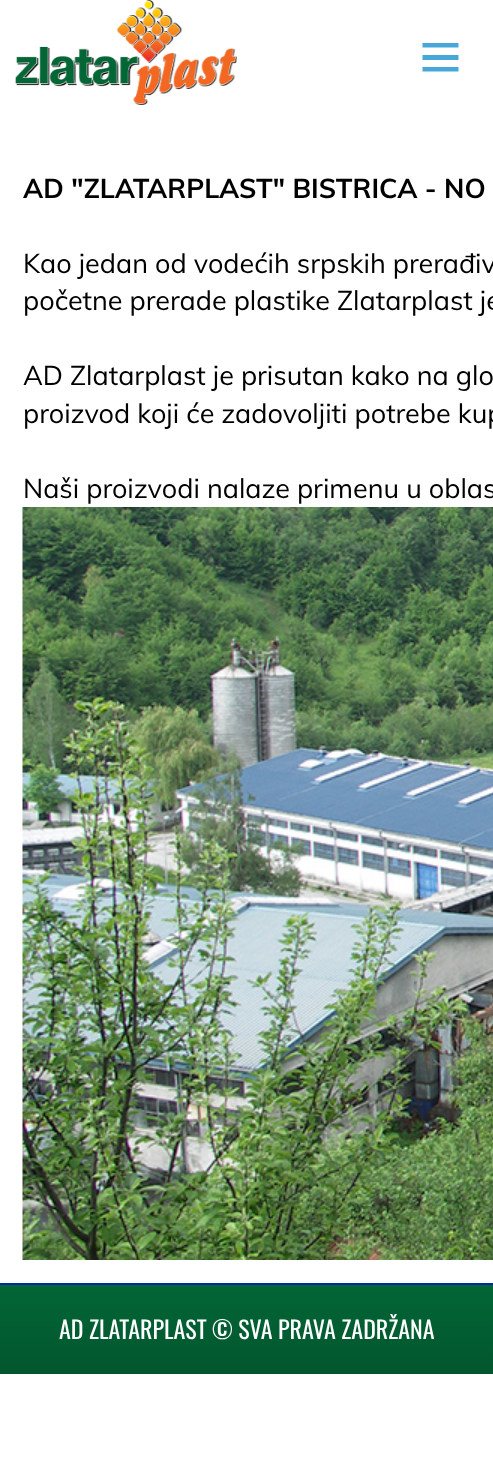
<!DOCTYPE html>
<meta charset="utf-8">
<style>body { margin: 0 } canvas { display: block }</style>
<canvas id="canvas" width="493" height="1465"></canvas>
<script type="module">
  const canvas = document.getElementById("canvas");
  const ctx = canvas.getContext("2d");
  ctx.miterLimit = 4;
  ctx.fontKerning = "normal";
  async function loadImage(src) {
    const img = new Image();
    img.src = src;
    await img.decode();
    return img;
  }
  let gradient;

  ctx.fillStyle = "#ffffff";
  ctx.fillRect(0, 0, 493, 1465);
  ctx.fillStyle = "#48a7d9";
  ctx.beginPath();
  ctx.moveTo(458.5, 43);
  ctx.lineTo(458.5, 47.5);
  ctx.lineTo(422.5, 47.5);
  ctx.lineTo(422.5, 43);
  ctx.closePath();
  ctx.moveTo(422.5, 60);
  ctx.lineTo(458.5, 60);
  ctx.lineTo(458.5, 55);
  ctx.lineTo(422.5, 55);
  ctx.closePath();
  ctx.moveTo(422.5, 71.5);
  ctx.lineTo(458.5, 71.5);
  ctx.lineTo(458.5, 67);
  ctx.lineTo(422.5, 67);
  ctx.closePath();
  ctx.fill();
  ctx.drawImage(await loadImage("img1.png"), 15, 0, 222, 105);
  ctx.font = "bold 27px Muli";
  ctx.fillStyle = "#000000";
  ctx.fillText("AD \"ZLATARPLAST\" BISTRICA - NO", 23, 198);
  ctx.font = "27px Muli";
  ctx.fillText("Kao jedan od vodećih srpskih prerađiv", 23, 273);
  ctx.fillText("početne prerade plastike Zlatarplast je", 23, 310);
  ctx.fillText("AD Zlatarplast je prisutan kako na glo", 23, 385);
  ctx.fillText("proizvod koji će zadovoljiti potrebe kup", 23, 423);
  ctx.fillText("Naši proizvodi nalaze primenu u oblas", 23, 498);
  ctx.drawImage(await loadImage("img2.png"), 22, 507, 471, 753);
  gradient = ctx.createLinearGradient(247, 1284, 247, 1374);
  gradient.addColorStop(0, "#026636");
  gradient.addColorStop(1, "#02562e");
  ctx.fillStyle = gradient;
  ctx.fillRect(0, 1285, 493, 89);
  ctx.fillStyle = "#002ba5";
  ctx.fillRect(0, 1283, 493, 2);
  ctx.font = "24px Oswald";
  ctx.fillStyle = "#ffffff";
  ctx.fillText("AD ZLATARPLAST © SVA PRAVA ZADRŽANA", 59, 1339);
</script>
